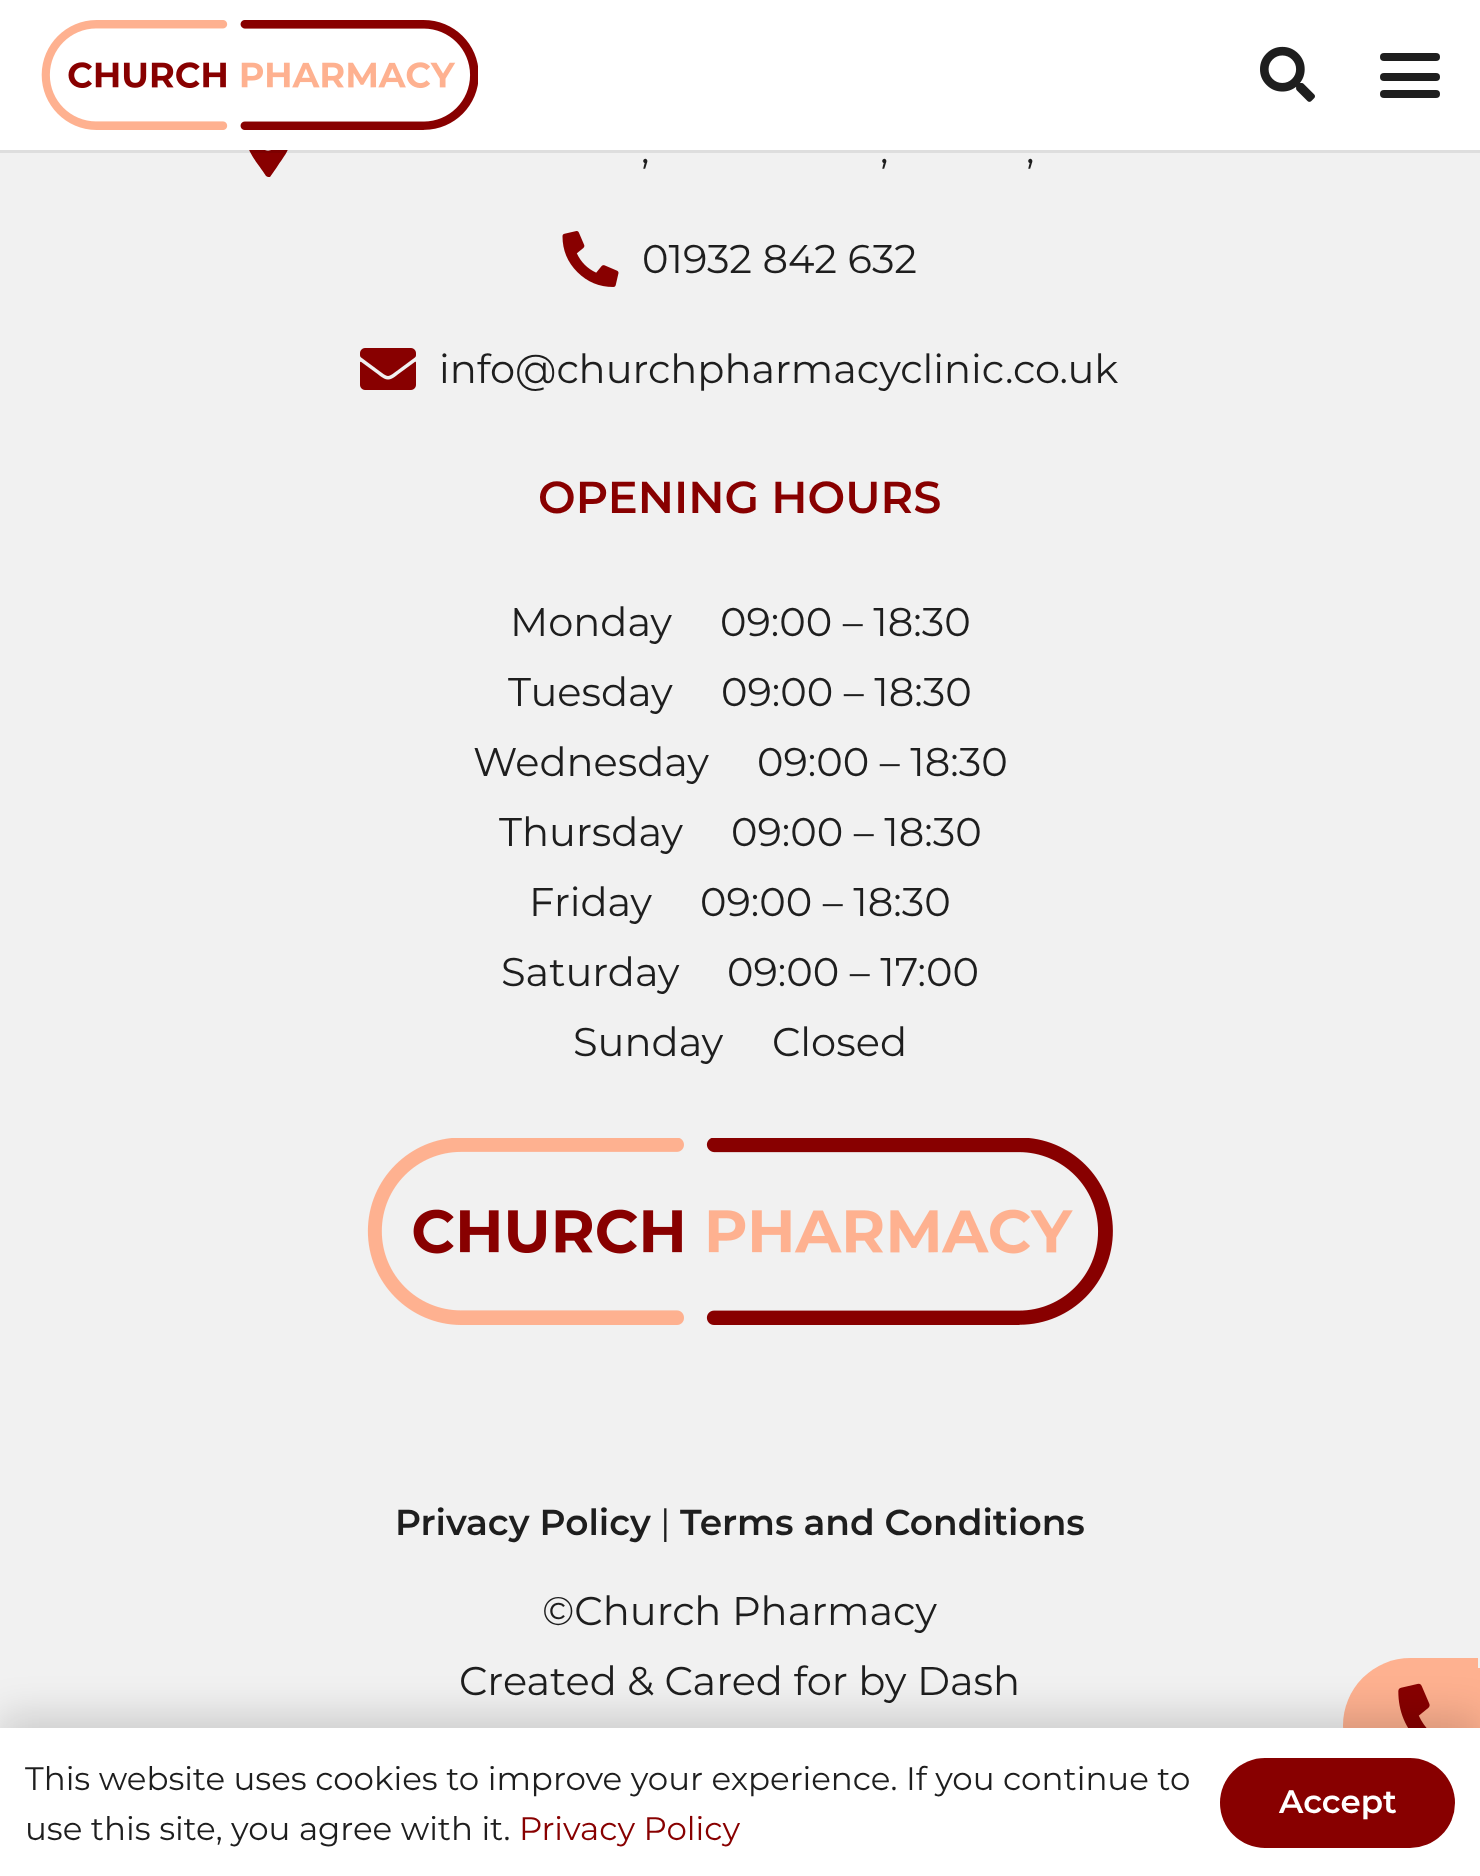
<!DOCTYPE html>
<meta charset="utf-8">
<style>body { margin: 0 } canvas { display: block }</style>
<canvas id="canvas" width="1480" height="1876"></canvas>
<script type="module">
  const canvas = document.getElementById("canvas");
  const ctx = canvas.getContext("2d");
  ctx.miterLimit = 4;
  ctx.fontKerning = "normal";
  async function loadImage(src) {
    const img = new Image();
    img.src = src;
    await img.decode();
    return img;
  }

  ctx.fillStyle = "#f1f1f1";
  ctx.fillRect(0, 0, 1480, 1876);
  ctx.fillStyle = "#880000";
  ctx.beginPath();
  ctx.moveTo(266, 176);
  ctx.bezierCurveTo(262, 169, 249, 154, 248, 146);
  ctx.bezierCurveTo(243, 124, 273, 112, 286, 130);
  ctx.bezierCurveTo(296, 144, 284, 156, 277, 167);
  ctx.lineTo(270, 177);
  ctx.bezierCurveTo(269, 177, 267, 177, 266, 176);
  ctx.closePath();
  ctx.moveTo(262, 148);
  ctx.bezierCurveTo(270, 156, 283, 144, 275, 136);
  ctx.bezierCurveTo(267, 128, 254, 140, 262, 148);
  ctx.closePath();
  ctx.fill();
  ctx.fillStyle = "rgba(0, 0, 0, 0.08)";
  ctx.fillRect(0, 150, 1480, 3);
  ctx.fillStyle = "#ffffff";
  ctx.fillRect(0, 0, 1480, 150);
  ctx.drawImage(await loadImage("img1.png"), 41, 20, 437, 110);
  ctx.drawImage(await loadImage("img2.png"), 1260, 46, 55, 56);
  ctx.fillStyle = "#1e1e1e";
  ctx.beginPath();
  ctx.roundRect(1380, 73, 60, 8, 4);
  ctx.fill();
  ctx.beginPath();
  ctx.roundRect(1380, 53, 60, 8, 4);
  ctx.fill();
  ctx.beginPath();
  ctx.roundRect(1380, 90, 60, 8, 4);
  ctx.fill();
  ctx.font = "40px Montserrat";
  ctx.fillText(",", 641, 163);
  ctx.fillText(",", 880, 163);
  ctx.fillText(",", 1026, 163);
  ctx.drawImage(await loadImage("img3.png"), 562, 231, 57, 56);
  ctx.fillText("01932 842 632", 642, 273);
  ctx.drawImage(await loadImage("img4.png"), 360, 348, 56, 42);
  ctx.fillText("info@churchpharmacyclinic.co.uk", 439, 383);
  ctx.font = "600 44.75px Montserrat";
  ctx.fillStyle = "#880000";
  ctx.fillText("OPENING HOURS", 538, 513);
  ctx.font = "40px Montserrat";
  ctx.fillStyle = "#1e1e1e";
  ctx.fillText("Monday", 510, 636);
  ctx.fillText("09:00 – 18:30", 720, 636);
  ctx.fillText("Tuesday", 508, 706);
  ctx.fillText("09:00 – 18:30", 721, 706);
  ctx.fillText("Wednesday", 473, 776);
  ctx.fillText("09:00 – 18:30", 757, 776);
  ctx.fillText("Thursday", 499, 846);
  ctx.fillText("09:00 – 18:30", 731, 846);
  ctx.fillText("Friday", 529, 916);
  ctx.fillText("09:00 – 18:30", 700, 916);
  ctx.fillText("Saturday", 501, 986);
  ctx.fillText("09:00 – 17:00", 727, 986);
  ctx.fillText("Sunday", 573, 1056);
  ctx.fillText("Closed", 772, 1056);
  ctx.drawImage(await loadImage("img5.png"), 367, 1138, 746, 187);
  ctx.font = "600 36px Montserrat";
  ctx.fillText("Privacy Policy", 395, 1535);
  ctx.font = "36px Montserrat";
  ctx.fillText("|", 660, 1535);
  ctx.font = "600 36px Montserrat";
  ctx.fillText("Terms and Conditions", 680, 1535);
  ctx.font = "40px Montserrat";
  ctx.fillText("©Church Pharmacy", 542, 1625);
  ctx.fillText("Created & Cared for by Dash", 459, 1695);
  ctx.fillStyle = "#feb190";
  ctx.beginPath();
  ctx.roundRect(1343, 1658, 135, 135, [67.5, 0, 0, 67.5]);
  ctx.fill();
  ctx.fillRect(1478, 1668, 2, 60);
  ctx.drawImage(await loadImage("img6.png"), 1398, 1683, 32, 45);
  ctx.fillStyle = "rgba(0, 0, 0, 0.15)";
  ctx.filter = "blur(19px)";
  ctx.beginPath();
  ctx.rect(0, 1715, 1480, 150);
  ctx.fill();
  ctx.filter = "none";
  ctx.fillStyle = "#ffffff";
  ctx.fillRect(0, 1728, 1480, 148);
  ctx.font = "32.5px Montserrat";
  ctx.fillStyle = "#1e1e1e";
  ctx.fillText("This website uses cookies to improve your experience. If you continue to", 25, 1790);
  ctx.fillText("use this site, you agree with it.", 25, 1840);
  ctx.fillStyle = "#880000";
  ctx.fillText("Privacy Policy", 519, 1840);
  ctx.beginPath();
  ctx.roundRect(1220, 1758, 235, 90, 45);
  ctx.fill();
  ctx.font = "600 32.5px Montserrat";
  ctx.fillStyle = "#ffffff";
  ctx.fillText("Accept", 1279, 1813);
</script>
